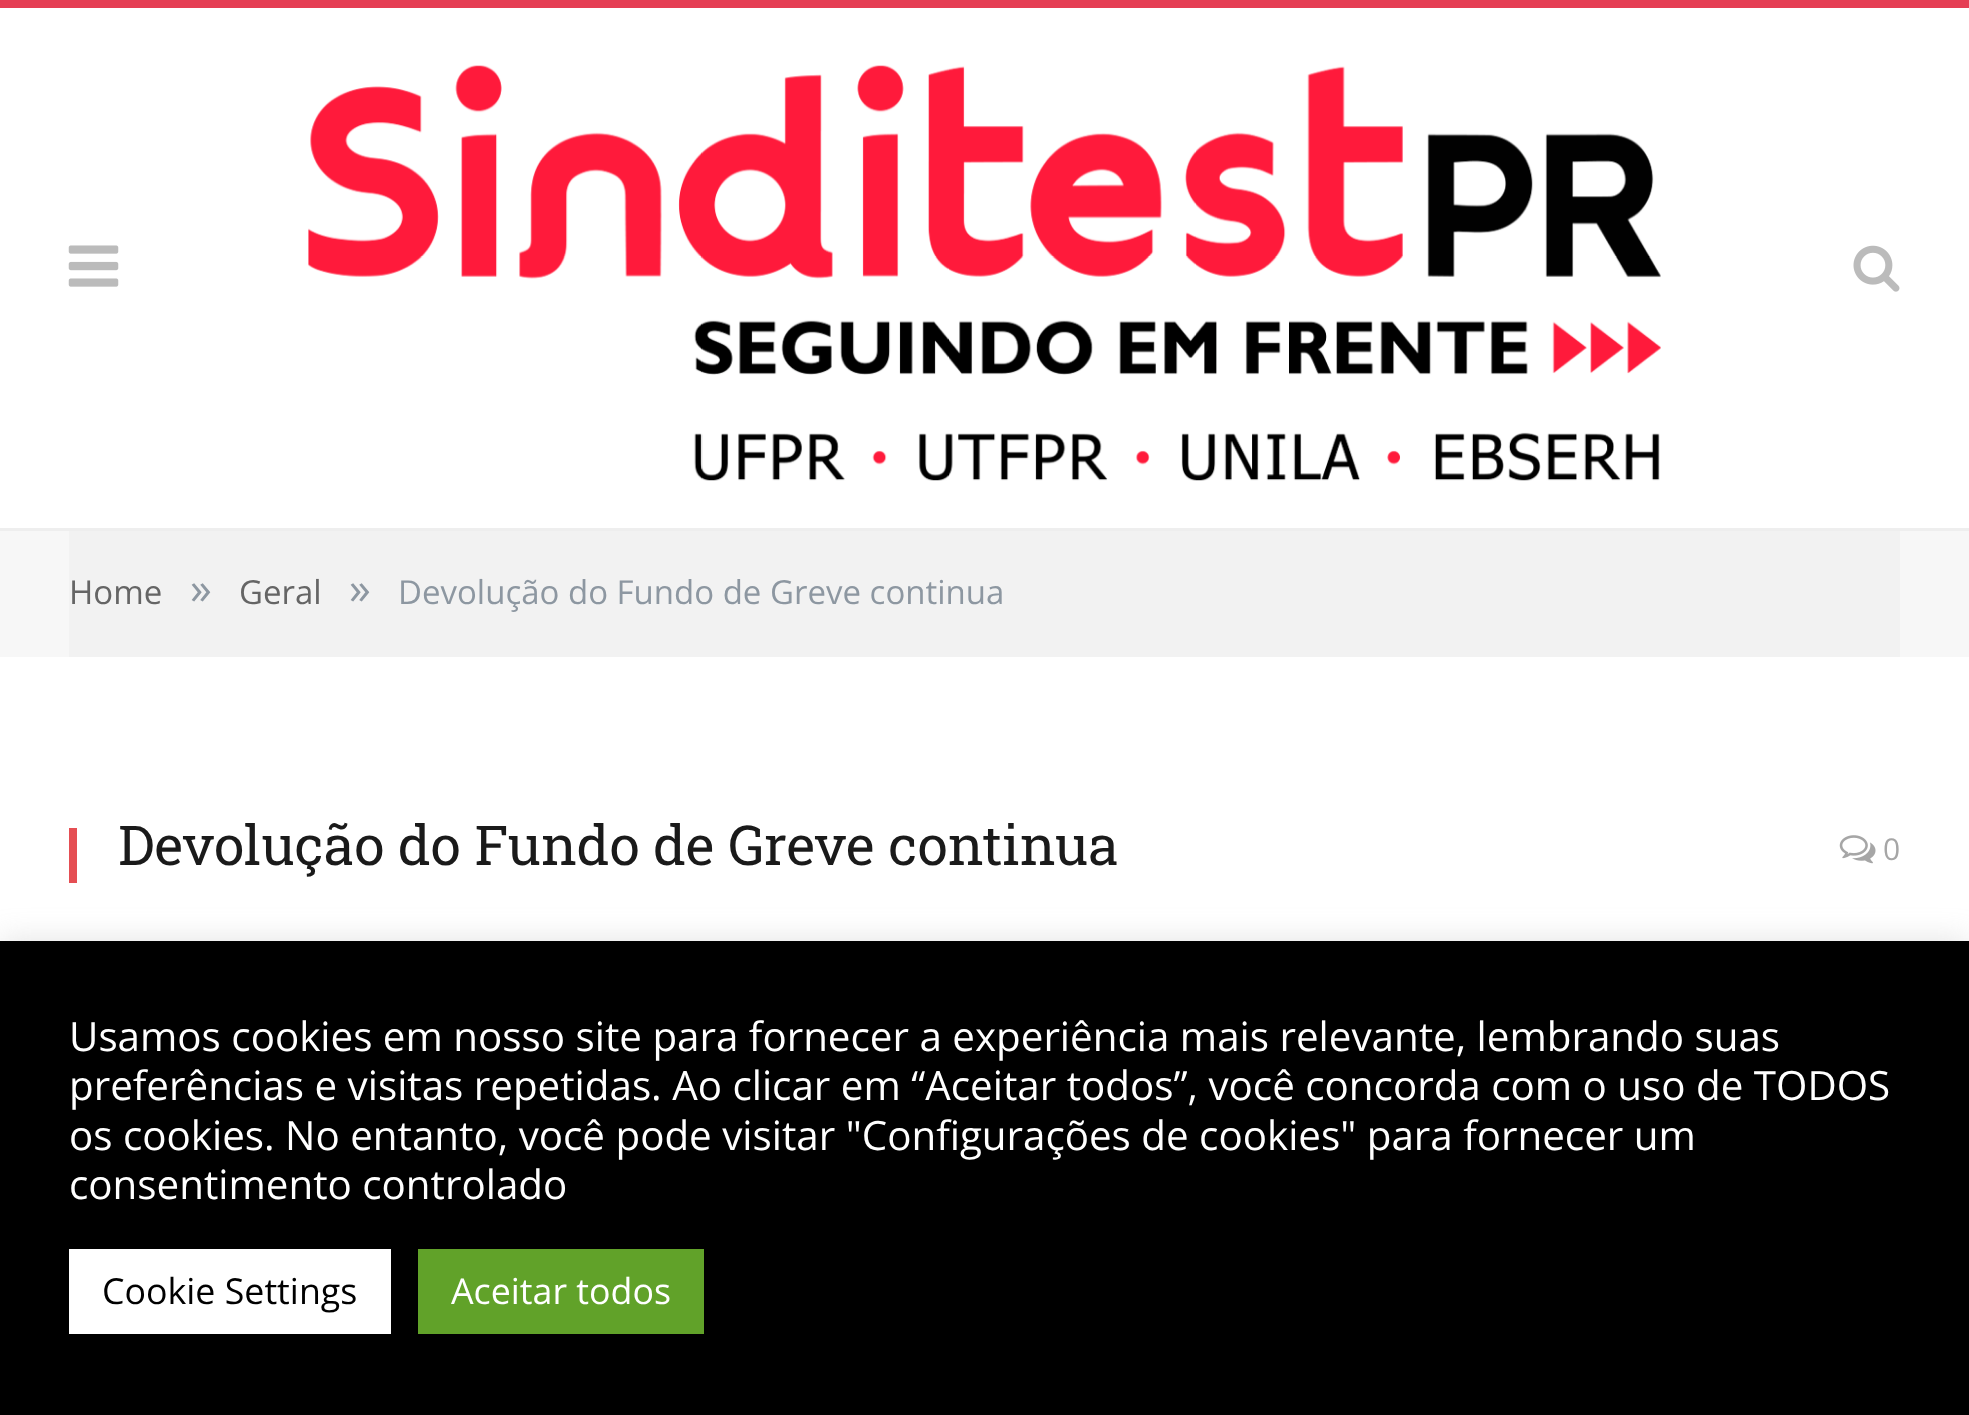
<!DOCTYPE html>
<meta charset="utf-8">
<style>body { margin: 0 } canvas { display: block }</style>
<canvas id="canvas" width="1969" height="1415"></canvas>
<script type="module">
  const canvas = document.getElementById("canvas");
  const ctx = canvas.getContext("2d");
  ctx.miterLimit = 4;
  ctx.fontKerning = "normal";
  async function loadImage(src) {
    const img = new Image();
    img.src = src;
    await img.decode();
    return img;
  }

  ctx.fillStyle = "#ffffff";
  ctx.fillRect(0, 0, 1969, 1415);
  ctx.fillStyle = "#e53e54";
  ctx.fillRect(0, 0, 1969, 8);
  ctx.fillStyle = "#eeeeee";
  ctx.fillRect(0, 528, 1969, 3);
  ctx.drawImage(await loadImage("img1.png"), 68, 245, 51, 42);
  ctx.drawImage(await loadImage("img2.png"), 308, 65, 1353, 416);
  ctx.drawImage(await loadImage("img3.png"), 1853, 245, 47, 47);
  ctx.fillStyle = "#f7f7f7";
  ctx.fillRect(0, 531, 1969, 126);
  ctx.fillStyle = "#f2f2f2";
  ctx.fillRect(69, 531, 1831, 126);
  ctx.font = "33px Open Sans";
  ctx.fillStyle = "#656565";
  ctx.fillText("Home", 69, 604);
  ctx.font = "44px Open Sans";
  ctx.fillStyle = "#8d97a1";
  ctx.fillText("»", 190, 604);
  ctx.font = "33px Open Sans";
  ctx.fillStyle = "#656565";
  ctx.fillText("Geral", 239, 604);
  ctx.font = "44px Open Sans";
  ctx.fillStyle = "#8d97a1";
  ctx.fillText("»", 349, 604);
  ctx.font = "33px Open Sans";
  ctx.fillText("Devolução do Fundo de Greve continua", 398, 604);
  ctx.fillStyle = "#e54e53";
  ctx.fillRect(69, 828, 8, 55);
  ctx.font = "55px Roboto Slab";
  ctx.fillStyle = "#1a1a1a";
  ctx.fillText("Devolução do Fundo de Greve continua", 118, 865);
  ctx.drawImage(await loadImage("img4.png"), 1839, 835, 37, 29);
  ctx.font = "30px Open Sans";
  ctx.fillStyle = "#a6a6a6";
  ctx.fillText("0", 1883, 860);
  ctx.fillStyle = "rgba(172, 171, 171, 0.3)";
  ctx.filter = "blur(14px)";
  ctx.beginPath();
  ctx.rect(0, 938, 1969, 476);
  ctx.fill();
  ctx.filter = "none";
  ctx.fillStyle = "#000000";
  ctx.fillRect(0, 941, 1969, 474);
  ctx.font = "40.35px Open Sans";
  ctx.fillStyle = "#ffffff";
  ctx.fillText("Usamos cookies em nosso site para fornecer a experiência mais relevante, lembrando suas", 69, 1051);
  ctx.fillText("preferências e visitas repetidas. Ao clicar em “Aceitar todos”, você concorda com o uso de TODOS", 69, 1100);
  ctx.fillText("os cookies. No entanto, você pode visitar \"Configurações de cookies\" para fornecer um", 69, 1150);
  ctx.fillText("consentimento controlado", 69, 1199);
  ctx.fillRect(69, 1249, 322, 85);
  ctx.font = "35.75px Open Sans";
  ctx.fillStyle = "#000000";
  ctx.fillText("Cookie Settings", 102, 1304);
  ctx.fillStyle = "#61a229";
  ctx.fillRect(418, 1249, 286, 85);
  ctx.fillStyle = "#ffffff";
  ctx.fillText("Aceitar todos", 451, 1304);
</script>
